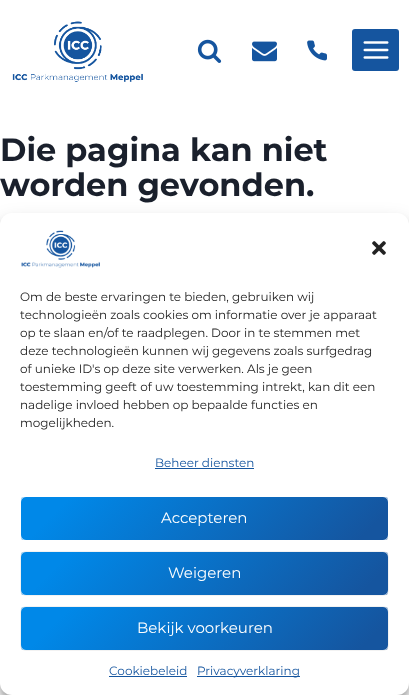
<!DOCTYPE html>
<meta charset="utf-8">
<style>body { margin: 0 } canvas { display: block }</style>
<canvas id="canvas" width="409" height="695"></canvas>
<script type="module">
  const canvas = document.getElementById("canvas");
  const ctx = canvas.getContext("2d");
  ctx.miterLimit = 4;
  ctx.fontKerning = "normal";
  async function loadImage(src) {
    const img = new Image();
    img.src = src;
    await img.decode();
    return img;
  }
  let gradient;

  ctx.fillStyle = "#ffffff";
  ctx.fillRect(0, 0, 409, 695);
  ctx.drawImage(await loadImage("img1.png"), 12, 21, 131, 61);
  ctx.drawImage(await loadImage("img2.png"), 197, 39, 25, 24);
  ctx.drawImage(await loadImage("img3.png"), 252, 41, 25, 21);
  ctx.drawImage(await loadImage("img4.png"), 307, 40, 20, 21);
  ctx.fillStyle = "#15559f";
  ctx.beginPath();
  ctx.roundRect(352, 29, 47, 42, 3);
  ctx.fill();
  ctx.drawImage(await loadImage("img5.png"), 363, 41, 26, 18);
  ctx.font = "bold 32px Montserrat";
  ctx.fillStyle = "#1a202c";
  ctx.fillText("Die pagina kan niet", 0, 161);
  ctx.fillText("worden gevonden.", 0, 196);
  ctx.fillStyle = "rgba(0, 0, 0, 0.23)";
  ctx.filter = "blur(3px)";
  ctx.beginPath();
  ctx.roundRect(0, 219, 409, 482, 12);
  ctx.fill();
  ctx.filter = "none";
  ctx.fillStyle = "rgba(0, 0, 0, 0.19)";
  ctx.filter = "blur(10px)";
  ctx.beginPath();
  ctx.roundRect(0, 223, 409, 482, 12);
  ctx.fill();
  ctx.filter = "none";
  ctx.fillStyle = "#808080";
  ctx.filter = "blur(2.5px)";
  ctx.beginPath();
  ctx.roundRect(339, 621, 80, 60, 2);
  ctx.fill();
  ctx.filter = "none";
  ctx.fillStyle = "#ffffff";
  ctx.beginPath();
  ctx.roundRect(0, 213, 409, 482, 12);
  ctx.fill();
  ctx.drawImage(await loadImage("img6.png"), 21, 230, 79, 38);
  ctx.drawImage(await loadImage("img7.png"), 372, 241, 14, 14);
  ctx.font = "12px Montserrat";
  ctx.fillStyle = "#222222";
  ctx.fillText("Om de beste ervaringen te bieden, gebruiken wij", 20, 301);
  ctx.fillText("technologieën zoals cookies om informatie over je apparaat", 20, 319);
  ctx.fillText("op te slaan en/of te raadplegen. Door in te stemmen met", 20, 337);
  ctx.fillText("deze technologieën kunnen wij gegevens zoals surfgedrag", 20, 355);
  ctx.fillText("of unieke ID's op deze site verwerken. Als je geen", 20, 373);
  ctx.fillText("toestemming geeft of uw toestemming intrekt, kan dit een", 20, 391);
  ctx.fillText("nadelige invloed hebben op bepaalde functies en", 20, 409);
  ctx.fillText("mogelijkheden.", 20, 427);
  ctx.fillStyle = "#15559f";
  ctx.fillText("Beheer diensten", 155, 467);
  ctx.fillRect(155, 468, 99, 1);
  ctx.save();
  ctx.beginPath();
  ctx.roundRect(20, 496, 369, 45, 6);
  ctx.clip();
  gradient = ctx.createLinearGradient(102, 416, 307, 621);
  gradient.addColorStop(0.12, "#0088e8");
  gradient.addColorStop(0.93, "#15559f");
  ctx.fillStyle = gradient;
  ctx.fillRect(21, 497, 367, 43);
  ctx.restore();
  ctx.beginPath();
  ctx.roundRect(20.5, 496.5, 368, 44, 5.5);
  ctx.strokeStyle = "#ffffff";
  ctx.stroke();
  ctx.font = "15px Montserrat";
  ctx.fillStyle = "#ffffff";
  ctx.fillText("Accepteren", 161, 523);
  ctx.save();
  ctx.beginPath();
  ctx.roundRect(20, 551, 369, 45, 6);
  ctx.clip();
  gradient = ctx.createLinearGradient(102, 471, 307, 676);
  gradient.addColorStop(0.12, "#0088e8");
  gradient.addColorStop(0.93, "#15559f");
  ctx.fillStyle = gradient;
  ctx.fillRect(21, 552, 367, 43);
  ctx.restore();
  ctx.beginPath();
  ctx.roundRect(20.5, 551.5, 368, 44, 5.5);
  ctx.strokeStyle = "#f2f2f2";
  ctx.stroke();
  ctx.fillText("Weigeren", 168, 578);
  ctx.save();
  ctx.beginPath();
  ctx.roundRect(20, 606, 369, 45, 6);
  ctx.clip();
  gradient = ctx.createLinearGradient(102, 526, 307, 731);
  gradient.addColorStop(0.12, "#0088e8");
  gradient.addColorStop(0.93, "#15559f");
  ctx.fillStyle = gradient;
  ctx.fillRect(21, 607, 367, 43);
  ctx.restore();
  ctx.beginPath();
  ctx.roundRect(20.5, 606.5, 368, 44, 5.5);
  ctx.stroke();
  ctx.fillText("Bekijk voorkeuren", 137, 633);
  ctx.font = "12px Montserrat";
  ctx.fillStyle = "#15559f";
  ctx.fillText("Cookiebeleid", 109, 675);
  ctx.fillRect(109, 676, 78, 1);
  ctx.fillRect(197, 676, 103, 1);
  ctx.fillText("Privacyverklaring", 197, 675);
</script>
